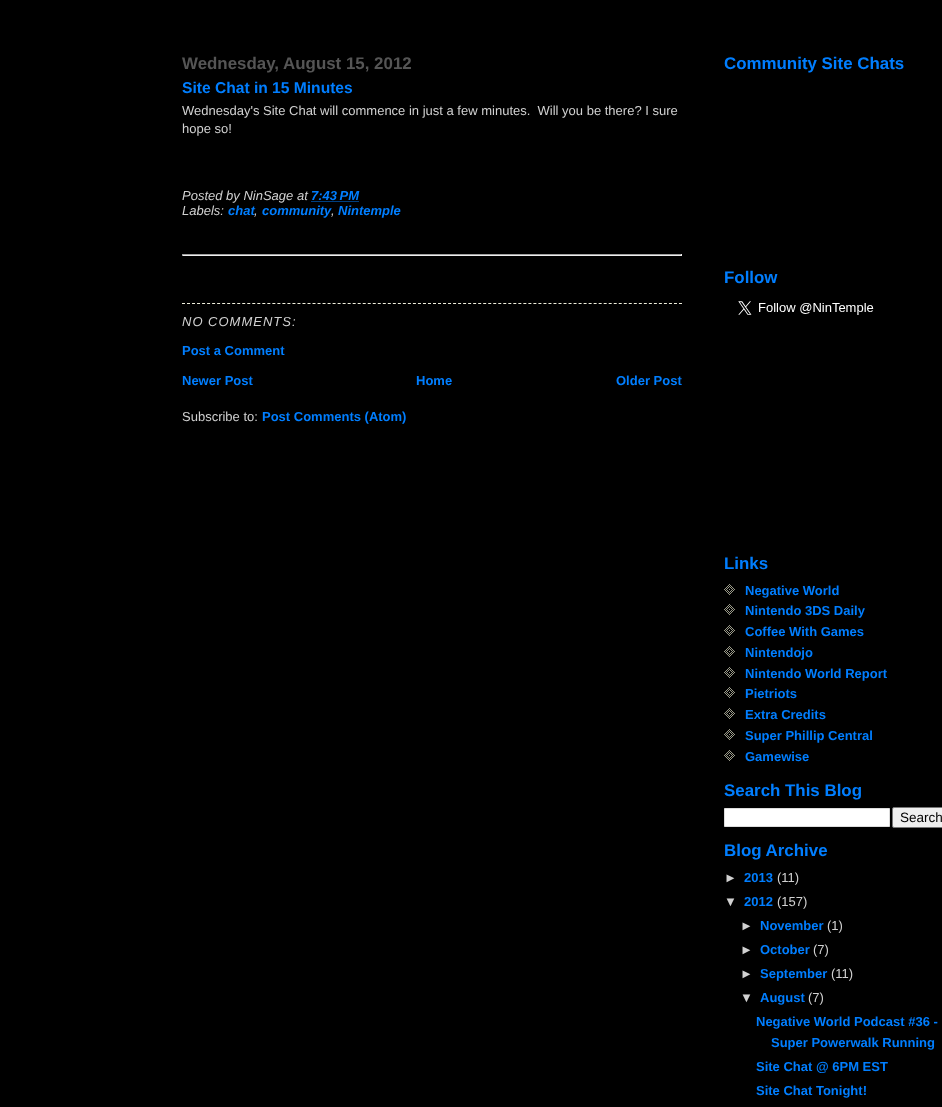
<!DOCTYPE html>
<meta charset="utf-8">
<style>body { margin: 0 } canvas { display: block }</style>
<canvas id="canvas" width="942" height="1107"></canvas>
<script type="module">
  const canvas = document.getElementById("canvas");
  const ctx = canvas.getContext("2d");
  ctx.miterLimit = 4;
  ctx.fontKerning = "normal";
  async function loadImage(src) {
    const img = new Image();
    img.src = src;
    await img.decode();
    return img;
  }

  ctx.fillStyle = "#000000";
  ctx.fillRect(0, 0, 942, 1107);
  ctx.font = "bold 16.9px Liberation Sans";
  ctx.fillStyle = "#555555";
  ctx.fillText("Wednesday, August 15, 2012", 182, 69);
  ctx.font = "bold 15.6px Liberation Sans";
  ctx.fillStyle = "#007eff";
  ctx.fillText("Site Chat in 15 Minutes", 182, 93);
  ctx.font = "13px Liberation Sans";
  ctx.fillStyle = "#d1d1d1";
  ctx.fillText("Wednesday's Site Chat will commence in just a few minutes.  Will you be there? I sure", 182, 115);
  ctx.fillText("hope so!", 182, 133);
  ctx.font = "italic 13px Liberation Sans";
  ctx.fillText("Posted by NinSage at", 182, 200);
  ctx.font = "italic bold 13px Liberation Sans";
  ctx.fillStyle = "#007eff";
  ctx.fillText("7:43 PM", 311, 200);
  ctx.beginPath();
  ctx.moveTo(311.5, 201.5);
  ctx.lineTo(359.5, 201.5);
  ctx.strokeStyle = "#007eff";
  ctx.setLineDash([1, 1]);
  ctx.stroke();
  ctx.font = "italic 13px Liberation Sans";
  ctx.fillStyle = "#d1d1d1";
  ctx.fillText("Labels:", 182, 215);
  ctx.font = "italic bold 13px Liberation Sans";
  ctx.fillStyle = "#007eff";
  ctx.fillText("chat", 228, 215);
  ctx.font = "italic 13px Liberation Sans";
  ctx.fillStyle = "#d1d1d1";
  ctx.fillText(",", 254, 215);
  ctx.font = "italic bold 13px Liberation Sans";
  ctx.fillStyle = "#007eff";
  ctx.fillText("community", 262, 215);
  ctx.fillText("Nintemple", 338, 215);
  ctx.font = "italic 13px Liberation Sans";
  ctx.fillStyle = "#d1d1d1";
  ctx.fillText(",", 331, 215);
  ctx.fillStyle = "#9f9f9f";
  ctx.fillRect(182, 254, 500, 1);
  ctx.fillStyle = "#eeeeee";
  ctx.fillRect(681, 254, 1, 2);
  ctx.fillRect(182, 255, 500, 1);
  ctx.fillStyle = "#9f9f9f";
  ctx.fillRect(182, 254, 1, 2);
  ctx.beginPath();
  ctx.moveTo(182, 303.5);
  ctx.lineTo(682, 303.5);
  ctx.strokeStyle = "#eeeedd";
  ctx.setLineDash([3, 2.02]);
  ctx.stroke();
  ctx.letterSpacing = "1px";
  ctx.fillStyle = "#d1d1d1";
  ctx.fillText("NO COMMENTS:", 182, 326);
  ctx.letterSpacing = "0px";
  ctx.font = "bold 13px Liberation Sans";
  ctx.fillStyle = "#007eff";
  ctx.fillText("Post a Comment", 182, 355);
  ctx.fillText("Newer Post", 182, 385);
  ctx.fillText("Home", 416, 385);
  ctx.fillText("Older Post", 616, 385);
  ctx.font = "13px Liberation Sans";
  ctx.fillStyle = "#d1d1d1";
  ctx.fillText("Subscribe to:", 182, 421);
  ctx.font = "bold 13px Liberation Sans";
  ctx.fillStyle = "#007eff";
  ctx.fillText("Post Comments (Atom)", 262, 421);
  ctx.font = "bold 16.9px Liberation Sans";
  ctx.fillText("Community Site Chats", 724, 69);
  ctx.fillText("Follow", 724, 283);
  ctx.drawImage(await loadImage("img1.png"), 738, 301, 136, 14);
  ctx.fillText("Links", 724, 569);
  ctx.drawImage(await loadImage("img2.png"), 724, 584, 11, 11);
  ctx.font = "bold 13px Liberation Sans";
  ctx.fillText("Negative World", 745, 595);
  ctx.drawImage(await loadImage("img2.png"), 724, 604, 11, 11);
  ctx.fillText("Nintendo 3DS Daily", 745, 615);
  ctx.drawImage(await loadImage("img2.png"), 724, 625, 11, 11);
  ctx.fillText("Coffee With Games", 745, 636);
  ctx.drawImage(await loadImage("img2.png"), 724, 646, 11, 11);
  ctx.fillText("Nintendojo", 745, 657);
  ctx.drawImage(await loadImage("img2.png"), 724, 667, 11, 11);
  ctx.fillText("Nintendo World Report", 745, 678);
  ctx.drawImage(await loadImage("img2.png"), 724, 687, 11, 11);
  ctx.fillText("Pietriots", 745, 698);
  ctx.drawImage(await loadImage("img2.png"), 724, 708, 11, 11);
  ctx.fillText("Extra Credits", 745, 719);
  ctx.drawImage(await loadImage("img2.png"), 724, 729, 11, 11);
  ctx.fillText("Super Phillip Central", 745, 740);
  ctx.drawImage(await loadImage("img2.png"), 724, 750, 11, 11);
  ctx.fillText("Gamewise", 745, 761);
  ctx.font = "bold 16.9px Liberation Sans";
  ctx.fillText("Search This Blog", 724, 796);
  ctx.fillStyle = "#ffffff";
  ctx.beginPath();
  ctx.rect(724.5, 808.5, 165, 18);
  ctx.fill();
  ctx.strokeStyle = "#dddddd";
  ctx.setLineDash([]);
  ctx.stroke();
  ctx.fillStyle = "#efefef";
  ctx.beginPath();
  ctx.roundRect(892.5, 807.5, 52, 20, 1.5);
  ctx.fill();
  ctx.strokeStyle = "#767676";
  ctx.stroke();
  ctx.font = "13.5px Liberation Sans";
  ctx.fillStyle = "#000000";
  ctx.fillText("Search", 900, 822);
  ctx.font = "bold 16.9px Liberation Sans";
  ctx.fillStyle = "#007eff";
  ctx.fillText("Blog Archive", 724, 856);
  ctx.font = "bold 13px Liberation Sans";
  ctx.fillStyle = "#d1d1d1";
  ctx.fillText("►", 724, 882);
  ctx.fillStyle = "#007eff";
  ctx.fillText("2013", 744, 882);
  ctx.font = "13px Liberation Sans";
  ctx.fillStyle = "#d1d1d1";
  ctx.fillText("(11)", 777, 882);
  ctx.font = "bold 13px Liberation Sans";
  ctx.fillText("▼", 724, 906);
  ctx.fillStyle = "#007eff";
  ctx.fillText("2012", 744, 906);
  ctx.font = "13px Liberation Sans";
  ctx.fillStyle = "#d1d1d1";
  ctx.fillText("(157)", 777, 906);
  ctx.font = "bold 13px Liberation Sans";
  ctx.fillText("►", 740, 930);
  ctx.fillStyle = "#007eff";
  ctx.fillText("November", 760, 930);
  ctx.font = "13px Liberation Sans";
  ctx.fillStyle = "#d1d1d1";
  ctx.fillText("(1)", 827, 930);
  ctx.font = "bold 13px Liberation Sans";
  ctx.fillText("►", 740, 954);
  ctx.fillStyle = "#007eff";
  ctx.fillText("October", 760, 954);
  ctx.font = "13px Liberation Sans";
  ctx.fillStyle = "#d1d1d1";
  ctx.fillText("(7)", 813, 954);
  ctx.font = "bold 13px Liberation Sans";
  ctx.fillText("►", 740, 978);
  ctx.fillStyle = "#007eff";
  ctx.fillText("September", 760, 978);
  ctx.font = "13px Liberation Sans";
  ctx.fillStyle = "#d1d1d1";
  ctx.fillText("(11)", 831, 978);
  ctx.font = "bold 13px Liberation Sans";
  ctx.fillText("▼", 740, 1002);
  ctx.fillStyle = "#007eff";
  ctx.fillText("August", 760, 1002);
  ctx.font = "13px Liberation Sans";
  ctx.fillStyle = "#d1d1d1";
  ctx.fillText("(7)", 808, 1002);
  ctx.font = "bold 13px Liberation Sans";
  ctx.fillStyle = "#007eff";
  ctx.fillText("Negative World Podcast #36 -", 756, 1026);
  ctx.fillText("Super Powerwalk Running", 771, 1047);
  ctx.fillText("Site Chat @ 6PM EST", 756, 1071);
  ctx.fillText("Site Chat Tonight!", 756, 1095);
</script>
